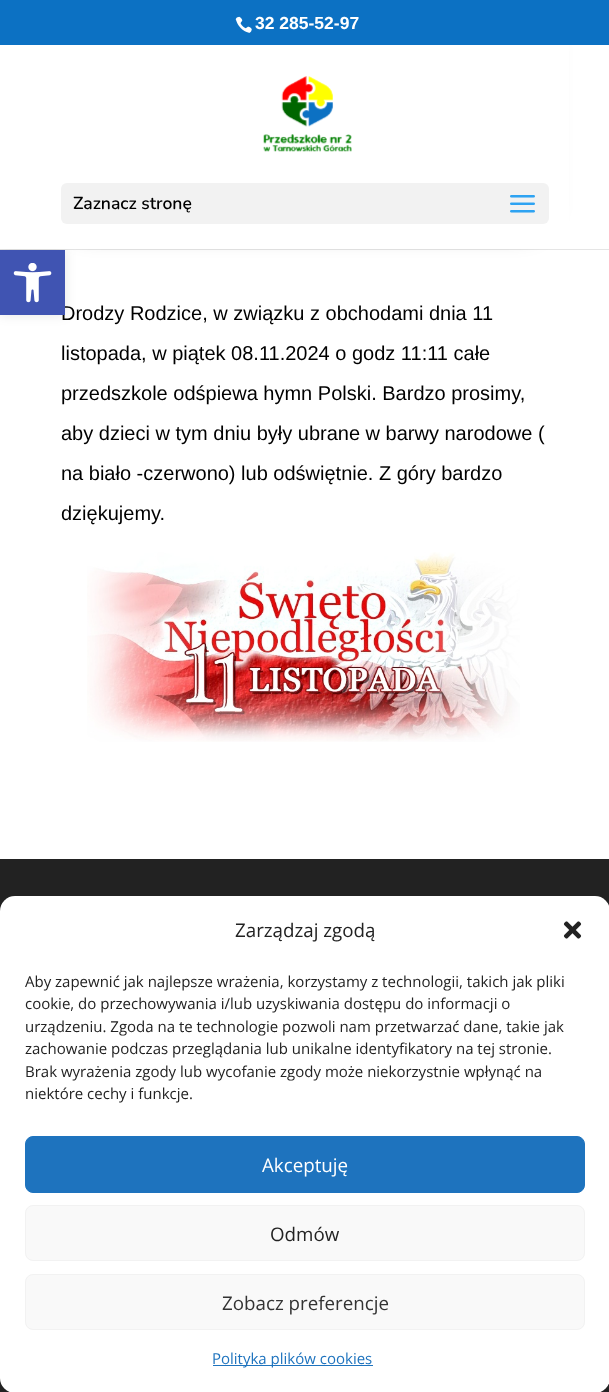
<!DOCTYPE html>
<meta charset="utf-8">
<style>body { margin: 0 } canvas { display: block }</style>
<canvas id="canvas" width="609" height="1392"></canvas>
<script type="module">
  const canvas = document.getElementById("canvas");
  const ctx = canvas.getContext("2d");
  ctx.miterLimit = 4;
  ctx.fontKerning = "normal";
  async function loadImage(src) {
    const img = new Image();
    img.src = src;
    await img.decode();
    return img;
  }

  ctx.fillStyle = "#ffffff";
  ctx.fillRect(0, 0, 609, 1392);
  ctx.fillStyle = "rgba(0, 0, 0, 0.1)";
  ctx.filter = "blur(6px)";
  ctx.beginPath();
  ctx.rect(0, 250, 65, 65);
  ctx.fill();
  ctx.filter = "none";
  ctx.fillStyle = "rgba(0, 0, 0, 0.3)";
  ctx.filter = "blur(11px)";
  ctx.beginPath();
  ctx.roundRect(61, 23, 488, 211, 31);
  ctx.fill();
  ctx.filter = "none";
  ctx.font = "20px Liberation Sans";
  ctx.fillStyle = "#000000";
  ctx.fillText("Drodzy Rodzice, w związku z obchodami dnia 11", 61, 320);
  ctx.fillStyle = "#4054b2";
  ctx.fillRect(0, 250, 65, 65);
  ctx.drawImage(await loadImage("img1.png"), 13, 263, 39, 40);
  ctx.fillStyle = "#0c71c3";
  ctx.fillRect(0, 0, 609, 45);
  ctx.drawImage(await loadImage("img2.png"), 235, 16, 17, 17);
  ctx.font = "bold 17.5px Liberation Sans";
  ctx.fillStyle = "#ffffff";
  ctx.fillText("32 285-52-97", 255, 29);
  ctx.fillStyle = "rgba(0, 0, 0, 0.1)";
  ctx.fillRect(0, 249, 609, 1);
  ctx.fillStyle = "#ffffff";
  ctx.fillRect(0, 45, 569, 204);
  ctx.drawImage(await loadImage("img3.png"), 263, 76, 89, 76);
  ctx.fillStyle = "#f2f2f2";
  ctx.beginPath();
  ctx.roundRect(61, 183, 488, 41, 6);
  ctx.fill();
  ctx.font = "600 17.5px Nunito";
  ctx.fillStyle = "#000000";
  ctx.fillText("Zaznacz stronę", 73, 209);
  ctx.drawImage(await loadImage("img4.png"), 510, 195, 25, 18);
  ctx.font = "20px Liberation Sans";
  ctx.fillText("listopada, w piątek 08.11.2024 o godz 11:11 całe", 61, 360);
  ctx.fillText("przedszkole odśpiewa hymn Polski. Bardzo prosimy,", 61, 400);
  ctx.fillText("aby dzieci w tym dniu były ubrane w barwy narodowe (", 61, 440);
  ctx.fillText("na biało -czerwono) lub odświętnie. Z góry bardzo", 61, 480);
  ctx.fillText("dziękujemy.", 61, 520);
  ctx.drawImage(await loadImage("img5.png"), 87, 552, 433, 190);
  ctx.fillStyle = "#222222";
  ctx.fillRect(0, 859, 609, 533);
  ctx.fillStyle = "#ffffff";
  ctx.beginPath();
  ctx.roundRect(0, 896, 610, 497, 15);
  ctx.fill();
  ctx.font = "18.75px Open Sans";
  ctx.fillStyle = "#222222";
  ctx.fillText("Zarządzaj zgodą", 235, 937);
  ctx.drawImage(await loadImage("img6.png"), 563, 921, 19, 18);
  ctx.font = "15px Open Sans";
  ctx.fillText("Aby zapewnić jak najlepsze wrażenia, korzystamy z technologii, takich jak pliki", 25, 987);
  ctx.fillText("cookie, do przechowywania i/lub uzyskiwania dostępu do informacji o", 25, 1009);
  ctx.fillText("urządzeniu. Zgoda na te technologie pozwoli nam przetwarzać dane, takie jak", 25, 1032);
  ctx.fillText("zachowanie podczas przeglądania lub unikalne identyfikatory na tej stronie.", 25, 1054);
  ctx.fillText("Brak wyrażenia zgody lub wycofanie zgody może niekorzystnie wpłynąć na", 25, 1077);
  ctx.fillText("niektóre cechy i funkcje.", 25, 1099);
  ctx.fillStyle = "#1e73be";
  ctx.beginPath();
  ctx.roundRect(25.5, 1136.5, 559, 56, 7.5);
  ctx.fill();
  ctx.strokeStyle = "#1e73be";
  ctx.stroke();
  ctx.font = "18.75px Open Sans";
  ctx.fillStyle = "#ffffff";
  ctx.fillText("Akceptuję", 262, 1172);
  ctx.fillStyle = "#f9f9f9";
  ctx.beginPath();
  ctx.roundRect(25.5, 1205.5, 559, 55, 7.5);
  ctx.fill();
  ctx.strokeStyle = "#f2f2f2";
  ctx.stroke();
  ctx.fillStyle = "#222222";
  ctx.fillText("Odmów", 270, 1241);
  ctx.fillStyle = "#f9f9f9";
  ctx.beginPath();
  ctx.roundRect(25.5, 1274.5, 559, 55, 7.5);
  ctx.fill();
  ctx.stroke();
  ctx.fillStyle = "#333333";
  ctx.fillText("Zobacz preferencje", 222, 1310);
  ctx.fillStyle = "#1e73be";
  ctx.fillRect(213, 1365, 160, 1);
  ctx.font = "15px Open Sans";
  ctx.fillText("Polityka plików cookies", 212, 1364);
</script>
